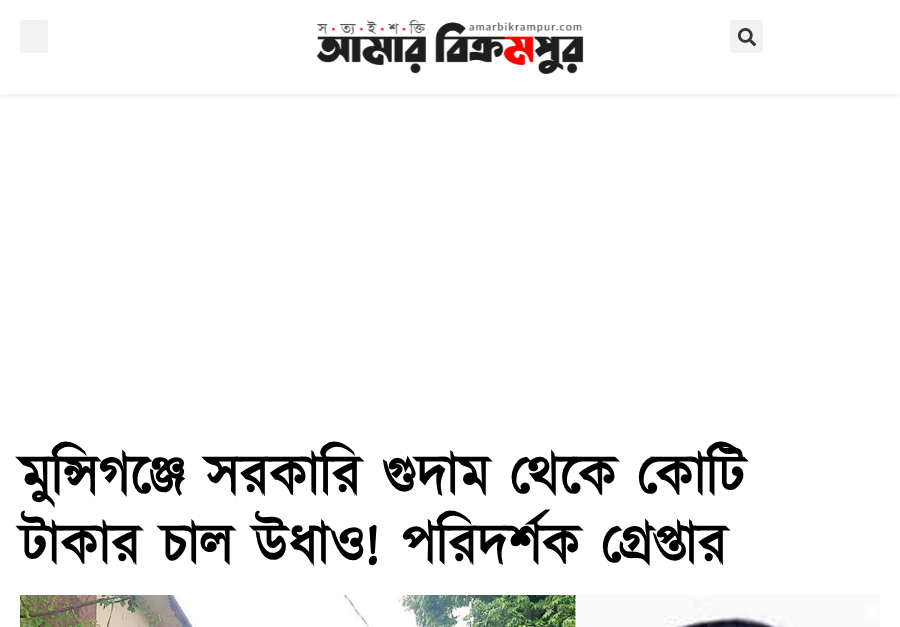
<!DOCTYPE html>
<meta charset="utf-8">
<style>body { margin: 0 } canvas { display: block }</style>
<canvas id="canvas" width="900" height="627"></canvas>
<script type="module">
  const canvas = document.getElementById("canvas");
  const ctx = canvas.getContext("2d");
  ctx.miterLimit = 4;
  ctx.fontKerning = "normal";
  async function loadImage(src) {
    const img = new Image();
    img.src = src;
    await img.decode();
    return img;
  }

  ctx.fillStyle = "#ffffff";
  ctx.fillRect(0, 0, 900, 627);
  ctx.save();
  ctx.beginPath();
  ctx.rect(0, 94, 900, 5);
  ctx.clip();
  ctx.fillStyle = "rgba(0, 0, 0, 0.11)";
  ctx.filter = "blur(5px)";
  ctx.beginPath();
  ctx.rect(0, 0, 900, 94);
  ctx.fill();
  ctx.filter = "none";
  ctx.restore();
  ctx.fillStyle = "#f2f2f2";
  ctx.beginPath();
  ctx.roundRect(20, 20, 28, 33, 3);
  ctx.fill();
  ctx.drawImage(await loadImage("img1.png"), 316, 20, 268, 54);
  ctx.beginPath();
  ctx.roundRect(730, 20, 33, 33, 3);
  ctx.fill();
  ctx.drawImage(await loadImage("img2.png"), 737, 28, 19, 19);
  ctx.font = "bold 57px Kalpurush";
  ctx.fillStyle = "#000000";
  ctx.fillText("মুন্সিগঞ্জে সরকারি গুদাম থেকে কোটি", 20, 495);
  ctx.fillText("টাকার চাল উধাও! পরিদর্শক গ্রেপ্তার", 20, 564);
  ctx.drawImage(await loadImage("img3.png"), 20, 595, 860, 32);
</script>
